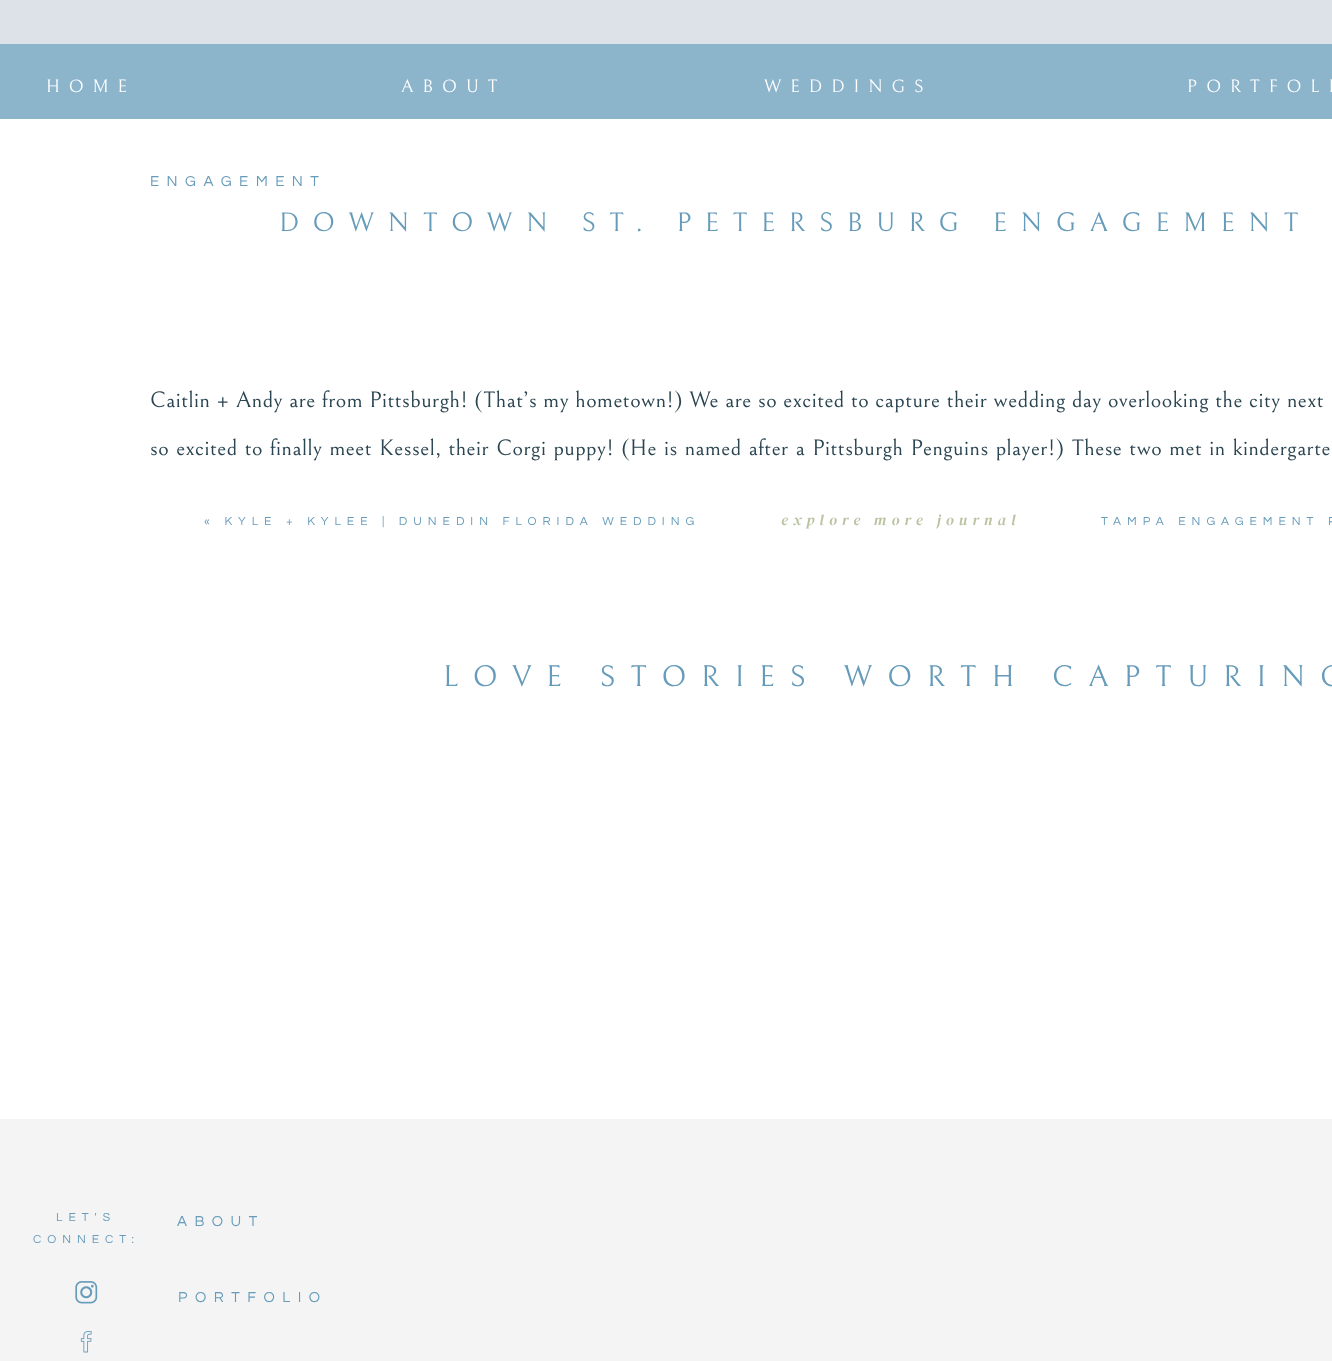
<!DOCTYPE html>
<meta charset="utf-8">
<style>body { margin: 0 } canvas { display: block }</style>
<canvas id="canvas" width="1332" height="1361"></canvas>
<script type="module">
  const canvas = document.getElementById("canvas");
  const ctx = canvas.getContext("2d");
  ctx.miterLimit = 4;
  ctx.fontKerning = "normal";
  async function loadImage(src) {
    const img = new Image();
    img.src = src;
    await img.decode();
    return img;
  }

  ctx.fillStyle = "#ffffff";
  ctx.fillRect(0, 0, 1332, 1361);
  ctx.fillStyle = "#dde2e8";
  ctx.fillRect(0, 0, 1332, 44);
  ctx.fillStyle = "#8cb4cb";
  ctx.fillRect(0, 44, 1332, 75);
  ctx.letterSpacing = "9px";
  ctx.font = "18px Bellefair";
  ctx.fillStyle = "#ffffff";
  ctx.fillText("HOME", 46, 92);
  ctx.fillText("ABOUT", 401, 92);
  ctx.fillText("WEDDINGS", 764, 92);
  ctx.fillText("PORTFOLI", 1187, 92);
  ctx.letterSpacing = "7.5px";
  ctx.font = "15px Questrial";
  ctx.fillStyle = "#669bba";
  ctx.fillText("ENGAGEMENT", 150, 186);
  ctx.letterSpacing = "13.5px";
  ctx.font = "27px Bellefair";
  ctx.fillText("DOWNTOWN ST. PETERSBURG ENGAGEMENT", 279, 231);
  ctx.letterSpacing = "0.45px";
  ctx.font = "22.5px Bellefair";
  ctx.fillStyle = "#2a4551";
  ctx.fillText("Caitlin + Andy are from Pittsburgh! (That’s my hometown!) We are so excited to capture their wedding day overlooking the city next", 150, 407);
  ctx.wordSpacing = "0.85px";
  ctx.fillText("so excited to finally meet Kessel, their Corgi puppy! (He is named after a Pittsburgh Penguins player!) These two met in kindergarte", 150, 455);
  ctx.letterSpacing = "6px";
  ctx.wordSpacing = "0px";
  ctx.font = "12px Questrial";
  ctx.fillStyle = "#669bba";
  ctx.fillText("« KYLE + KYLEE | DUNEDIN FLORIDA WEDDING", 204, 525);
  ctx.letterSpacing = "5.25px";
  ctx.font = "italic 15px DM Serif Display";
  ctx.fillStyle = "#b9c3a0";
  ctx.fillText("explore more journal", 781, 525);
  ctx.letterSpacing = "6px";
  ctx.font = "12px Questrial";
  ctx.fillStyle = "#669bba";
  ctx.fillText("TAMPA ENGAGEMENT P", 1101, 525);
  ctx.letterSpacing = "15px";
  ctx.font = "30px Bellefair";
  ctx.fillText("LOVE STORIES WORTH CAPTURING", 443, 686);
  ctx.fillStyle = "#f4f4f5";
  ctx.fillRect(0, 1119, 1332, 242);
  ctx.letterSpacing = "6px";
  ctx.font = "12px Questrial";
  ctx.fillStyle = "#669bba";
  ctx.fillText("LET'S", 56, 1221);
  ctx.fillText("CONNECT:", 33, 1243);
  ctx.letterSpacing = "7.5px";
  ctx.font = "15px Questrial";
  ctx.fillText("ABOUT", 177, 1226);
  ctx.drawImage(await loadImage("img1.png"), 75, 1281, 23, 23);
  ctx.fillText("PORTFOLIO", 178, 1302);
  ctx.drawImage(await loadImage("img2.png"), 80, 1331, 12, 22);
</script>
